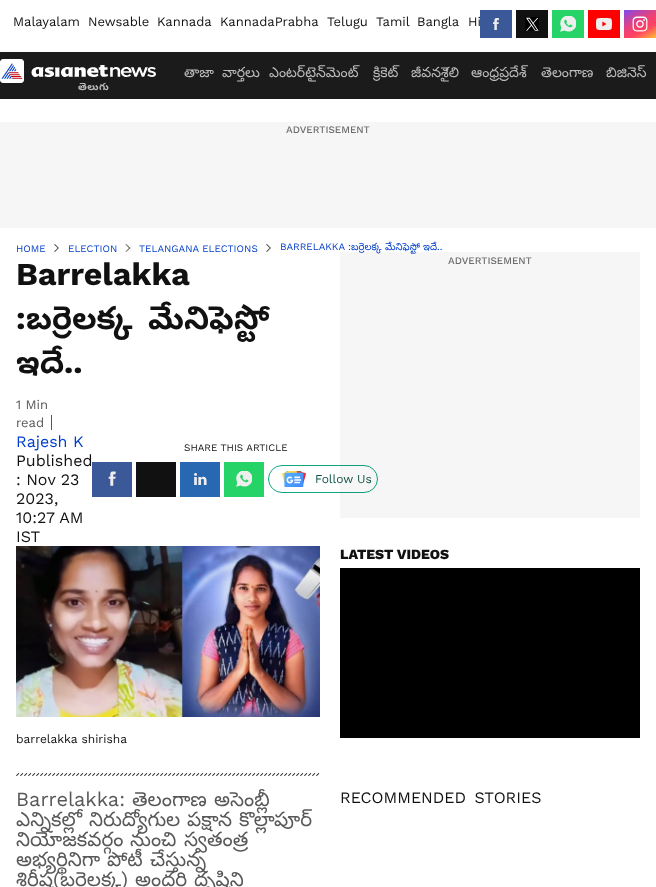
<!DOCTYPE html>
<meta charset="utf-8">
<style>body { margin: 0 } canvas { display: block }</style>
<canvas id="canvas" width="656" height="887"></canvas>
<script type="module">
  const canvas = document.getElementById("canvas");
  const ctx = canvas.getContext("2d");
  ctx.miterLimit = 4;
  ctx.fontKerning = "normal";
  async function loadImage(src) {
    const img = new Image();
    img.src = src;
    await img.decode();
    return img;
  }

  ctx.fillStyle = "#ffffff";
  ctx.fillRect(0, 0, 656, 887);
  ctx.font = "13px Work Sans";
  ctx.fillStyle = "#111111";
  ctx.fillText("Malayalam", 13, 26);
  ctx.fillText("Newsable", 88, 26);
  ctx.fillText("Kannada", 157, 26);
  ctx.fillText("KannadaPrabha", 220, 26);
  ctx.fillText("Telugu", 327, 26);
  ctx.fillText("Tamil", 376, 26);
  ctx.fillText("Bangla", 417, 26);
  ctx.fillText("Hi", 468, 26);
  ctx.fillStyle = "#3b5998";
  ctx.fillRect(480, 10, 32, 28);
  ctx.drawImage(await loadImage("img1.png"), 493, 18, 6, 12);
  ctx.fillStyle = "#111111";
  ctx.fillRect(516, 10, 32, 28);
  ctx.drawImage(await loadImage("img2.png"), 525, 17, 14, 14);
  ctx.fillStyle = "#25d366";
  ctx.fillRect(552, 10, 32, 28);
  ctx.drawImage(await loadImage("img3.png"), 560, 16, 16, 16);
  ctx.fillStyle = "#ff0000";
  ctx.fillRect(588, 10, 32, 28);
  ctx.drawImage(await loadImage("img4.png"), 596, 18, 16, 12);
  ctx.drawImage(await loadImage("img5.png"), 624, 10, 32, 28);
  ctx.fillStyle = "#1b1b1b";
  ctx.fillRect(0, 52, 656, 47);
  ctx.font = "14px 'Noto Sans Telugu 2'";
  ctx.fillStyle = "#bbbbbb";
  ctx.fillText("తాజా", 184, 77);
  ctx.fillText("వార్తలు", 222, 77);
  ctx.fillText("ఎంటర్‌టైన్‌మెంట్", 269, 77);
  ctx.fillText("క్రికెట్", 373, 77);
  ctx.fillText("జీవనశైలి", 411, 77);
  ctx.fillText("ఆంధ్రప్రదేశ్", 471, 77);
  ctx.fillText("తెలంగాణ", 541, 77);
  ctx.fillText("బిజినెస్", 606, 77);
  ctx.drawImage(await loadImage("img6.png"), 0, 59, 156, 24);
  ctx.letterSpacing = "0.5px";
  ctx.font = "bold 10px Noto Sans Telugu";
  ctx.fillText("తెలుగు", 78, 90);
  ctx.fillStyle = "#f6f6f6";
  ctx.fillRect(0, 122, 656, 106);
  ctx.letterSpacing = "0px";
  ctx.font = "500 10px Work Sans";
  ctx.fillStyle = "#6d6d6d";
  ctx.fillText("ADVERTISEMENT", 286, 133);
  ctx.font = "10px Work Sans";
  ctx.fillStyle = "#003dc9";
  ctx.fillText("HOME", 16, 252);
  ctx.fillStyle = "#585858";
  ctx.beginPath();
  ctx.moveTo(55, 244);
  ctx.lineTo(59, 248);
  ctx.lineTo(57.5, 248);
  ctx.lineTo(54, 244.5);
  ctx.closePath();
  ctx.moveTo(59, 248);
  ctx.lineTo(55, 252);
  ctx.lineTo(54, 251.5);
  ctx.lineTo(57.5, 248);
  ctx.closePath();
  ctx.fill();
  ctx.fillStyle = "#003dc9";
  ctx.fillText("ELECTION", 68, 252);
  ctx.fillStyle = "#585858";
  ctx.beginPath();
  ctx.moveTo(126, 244);
  ctx.lineTo(130.5, 248);
  ctx.lineTo(129, 248);
  ctx.lineTo(125.5, 244.5);
  ctx.closePath();
  ctx.moveTo(130.5, 248);
  ctx.lineTo(126, 252);
  ctx.lineTo(125.5, 251.5);
  ctx.lineTo(129, 248);
  ctx.closePath();
  ctx.fill();
  ctx.fillStyle = "#003dc9";
  ctx.fillText("TELANGANA ELECTIONS", 139, 252);
  ctx.fillStyle = "#585858";
  ctx.beginPath();
  ctx.moveTo(267, 244);
  ctx.lineTo(271, 248);
  ctx.lineTo(269.5, 248);
  ctx.lineTo(266, 244.5);
  ctx.closePath();
  ctx.moveTo(271, 248);
  ctx.lineTo(267, 252);
  ctx.lineTo(266, 251.5);
  ctx.lineTo(269.5, 248);
  ctx.closePath();
  ctx.fill();
  ctx.fillStyle = "#003dc9";
  ctx.fillText("BARRELAKKA :", 280, 250);
  ctx.font = "10px Noto Sans Telugu";
  ctx.fillText("బర్రెలక్క", 351, 250);
  ctx.fillText("మేనిఫెస్టో", 385, 250);
  ctx.fillText("ఇదే", 423, 250);
  ctx.font = "10px Work Sans";
  ctx.fillText("..", 437, 250);
  ctx.font = "bold 32px Work Sans";
  ctx.fillStyle = "#111111";
  ctx.fillText("Barrelakka", 16, 285);
  ctx.fillText(":", 16, 329);
  ctx.font = "bold 32px Noto Sans Telugu";
  ctx.fillText("బర్రెలక్క", 26, 329);
  ctx.fillText("మేనిఫెస్టో", 148, 329);
  ctx.fillText("ఇదే", 16, 373);
  ctx.font = "bold 32px Work Sans";
  ctx.fillText("..", 64, 373);
  ctx.font = "13px Work Sans";
  ctx.fillStyle = "#585858";
  ctx.fillText("1 Min", 16, 409);
  ctx.fillText("read", 16, 427);
  ctx.fillRect(51, 415, 1, 15);
  ctx.font = "16px Work Sans";
  ctx.fillStyle = "#003dc9";
  ctx.fillText("Rajesh K", 16, 447);
  ctx.fillStyle = "#111111";
  ctx.fillText("Published", 16, 466);
  ctx.fillText(": Nov 23", 16, 485);
  ctx.fillText("2023,", 16, 504);
  ctx.fillText("10:27 AM", 16, 523);
  ctx.fillText("IST", 16, 542);
  ctx.font = "10px Work Sans";
  ctx.fillText("SHARE THIS ARTICLE", 184, 451);
  ctx.fillStyle = "#3b5998";
  ctx.fillRect(92, 462, 40, 35);
  ctx.drawImage(await loadImage("img7.png"), 108, 471, 8, 15);
  ctx.fillStyle = "#111111";
  ctx.fillRect(136, 462, 40, 35);
  ctx.fillStyle = "#2867b2";
  ctx.fillRect(180, 462, 40, 35);
  ctx.drawImage(await loadImage("img8.png"), 194, 473, 13, 12);
  ctx.fillStyle = "#25d366";
  ctx.fillRect(224, 462, 40, 35);
  ctx.drawImage(await loadImage("img3.png"), 236, 471, 16, 16);
  ctx.beginPath();
  ctx.roundRect(268.5, 465.5, 109, 27, 13.5);
  ctx.strokeStyle = "#0ea583";
  ctx.stroke();
  ctx.drawImage(await loadImage("img9.png"), 281, 471, 25, 16);
  ctx.font = "12px Work Sans";
  ctx.fillStyle = "#0e5445";
  ctx.fillText("Follow Us", 315, 483);
  ctx.drawImage(await loadImage("img10.png"), 16, 546, 304, 171);
  ctx.fillStyle = "#111111";
  ctx.fillText("barrelakka shirisha", 16, 743);
  ctx.drawImage(await loadImage("img11.png"), 16, 773, 304, 3);
  ctx.font = "20px Work Sans";
  ctx.fillStyle = "#585858";
  ctx.fillText("Barrelakka:", 16, 806);
  ctx.font = "20px 'Noto Sans Telugu 2'";
  ctx.fillText("తెలంగాణ", 132, 806);
  ctx.fillText("అసెంబ్లీ", 214, 806);
  ctx.fillText("ఎన్నికల్లో", 16, 826);
  ctx.fillText("నిరుద్యోగుల", 89, 826);
  ctx.fillText("పక్షాన", 187, 826);
  ctx.fillText("కొల్లాపూర్", 239, 826);
  ctx.fillText("నియోజకవర్గం", 16, 846);
  ctx.fillText("నుంచి", 130, 846);
  ctx.fillText("స్వతంత్ర", 184, 846);
  ctx.fillText("అభ్యర్థినిగా", 16, 866);
  ctx.fillText("పోటీ", 107, 866);
  ctx.fillText("చేస్తున్న", 150, 866);
  ctx.fillText("శిరీష", 16, 886);
  ctx.font = "20px Work Sans";
  ctx.fillText("(", 53, 886);
  ctx.font = "20px 'Noto Sans Telugu 2'";
  ctx.fillText("బర్రెలక్క", 60, 886);
  ctx.font = "20px Work Sans";
  ctx.fillText(")", 121, 886);
  ctx.font = "20px 'Noto Sans Telugu 2'";
  ctx.fillText("అందరి", 135, 886);
  ctx.fillText("దృష్టిని", 194, 886);
  ctx.fillStyle = "rgba(17, 17, 17, 0.04)";
  ctx.fillRect(340, 252, 300, 266);
  ctx.font = "500 10px Work Sans";
  ctx.fillStyle = "#6d6d6d";
  ctx.fillText("ADVERTISEMENT", 448, 264);
  ctx.font = "800 14px Work Sans";
  ctx.fillStyle = "#111111";
  ctx.fillText("LATEST VIDEOS", 340, 559);
  ctx.fillStyle = "#000000";
  ctx.fillRect(340, 568, 300, 170);
  ctx.wordSpacing = "3px";
  ctx.font = "16px Work Sans";
  ctx.fillStyle = "#111111";
  ctx.fillText("RECOMMENDED STORIES", 340, 803);
</script>
